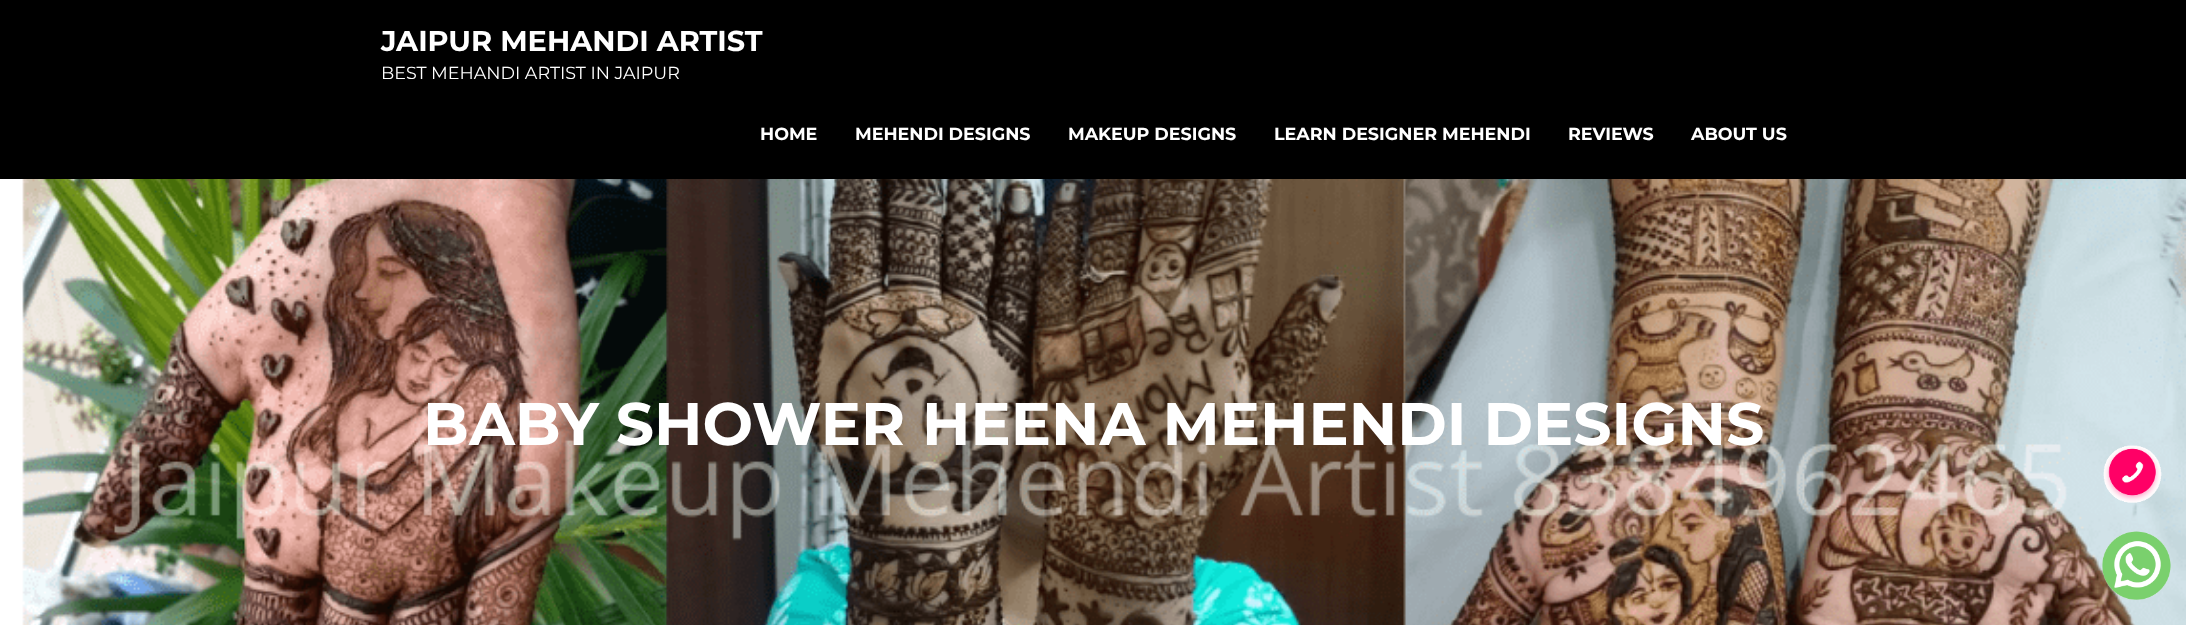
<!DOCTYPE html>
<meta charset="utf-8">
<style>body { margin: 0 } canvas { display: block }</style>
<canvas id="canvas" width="2186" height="625"></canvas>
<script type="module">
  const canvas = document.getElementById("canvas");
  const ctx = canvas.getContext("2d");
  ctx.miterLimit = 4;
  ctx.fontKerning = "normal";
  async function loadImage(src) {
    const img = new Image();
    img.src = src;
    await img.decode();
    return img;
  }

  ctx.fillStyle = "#ffffff";
  ctx.fillRect(0, 0, 2186, 625);
  ctx.fillStyle = "#000000";
  ctx.fillRect(0, 0, 2186, 179);
  ctx.font = "bold 28.75px Montserrat";
  ctx.fillStyle = "#ffffff";
  ctx.fillText("JAIPUR MEHANDI ARTIST", 381, 51);
  ctx.font = "17.5px Montserrat";
  ctx.fillText("BEST MEHANDI ARTIST IN JAIPUR", 381, 79);
  ctx.font = "bold 17.5px Montserrat";
  ctx.fillText("HOME", 760, 140);
  ctx.fillText("MEHENDI DESIGNS", 855, 140);
  ctx.fillText("MAKEUP DESIGNS", 1068, 140);
  ctx.fillText("LEARN DESIGNER MEHENDI", 1274, 140);
  ctx.fillText("REVIEWS", 1568, 140);
  ctx.fillText("ABOUT US", 1691, 140);
  ctx.drawImage(await loadImage("img1.png"), 22, 179, 2164, 446);
  ctx.font = "bold 60px Montserrat";
  ctx.fillText("BABY SHOWER HEENA MEHENDI DESIGNS", 423, 445);
  ctx.drawImage(await loadImage("img2.png"), 2103, 445, 59, 58);
  ctx.drawImage(await loadImage("img3.png"), 2102, 531, 69, 69);
</script>
